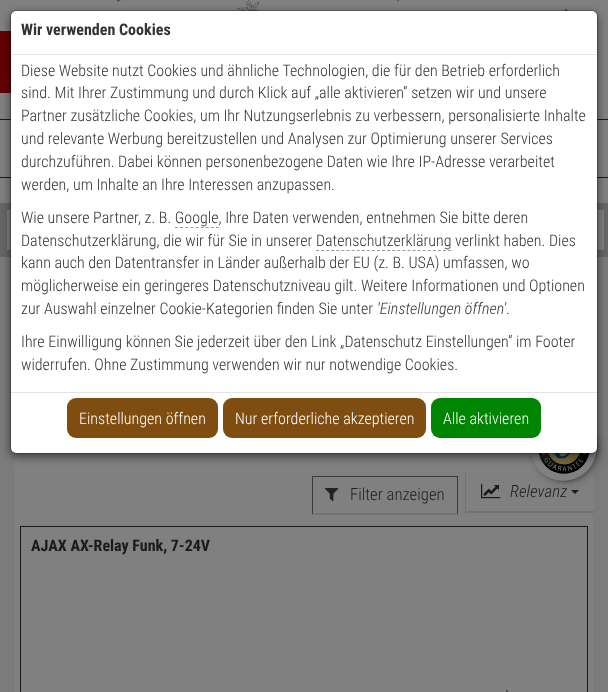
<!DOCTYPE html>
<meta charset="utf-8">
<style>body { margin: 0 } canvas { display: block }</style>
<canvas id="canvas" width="608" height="692"></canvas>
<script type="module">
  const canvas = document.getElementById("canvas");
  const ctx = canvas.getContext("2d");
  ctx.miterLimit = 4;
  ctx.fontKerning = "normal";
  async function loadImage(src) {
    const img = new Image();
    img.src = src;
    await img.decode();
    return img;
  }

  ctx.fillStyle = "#7b7b7b";
  ctx.fillRect(0, 0, 608, 692);
  ctx.fillStyle = "#808080";
  ctx.fillRect(0, 0, 608, 203);
  ctx.drawImage(await loadImage("img1.png"), 116, 0, 5, 2);
  ctx.drawImage(await loadImage("img2.png"), 237, 0, 23, 11);
  ctx.drawImage(await loadImage("img3.png"), 397, 0, 2, 2);
  ctx.drawImage(await loadImage("img4.png"), 564, 9, 4, 2);
  ctx.fillStyle = "#640007";
  ctx.fillRect(0, 31, 11, 62);
  ctx.fillStyle = "#1a1a1a";
  ctx.fillRect(0, 119, 608, 1);
  ctx.fillRect(0, 177, 608, 1);
  ctx.fillStyle = "#666666";
  ctx.fillRect(0, 203, 608, 54);
  ctx.fillStyle = "#808080";
  ctx.fillRect(7, 210, 597, 40);
  ctx.fillRect(15, 452, 522, 16);
  ctx.fillRect(15, 468, 578, 224);
  ctx.fillRect(593, 473, 1, 38);
  ctx.fillStyle = "#1a1a1a";
  ctx.beginPath();
  ctx.moveTo(571, 490);
  ctx.lineTo(579, 490);
  ctx.lineTo(575, 494);
  ctx.closePath();
  ctx.fill();
  ctx.fillStyle = "rgba(0, 0, 0, 0.15)";
  ctx.filter = "blur(4px)";
  ctx.beginPath();
  ctx.roundRect(533, 417, 68, 68, 34);
  ctx.fill();
  ctx.filter = "none";
  ctx.filter = "blur(1px)";
  ctx.beginPath();
  ctx.roundRect(531, 415, 68, 68, 34);
  ctx.fill();
  ctx.filter = "none";
  ctx.fillStyle = "#808080";
  ctx.beginPath();
  ctx.arc(564, 448, 34, 0, Math.PI * 2);
  ctx.fill();
  ctx.fillStyle = "#737373";
  ctx.beginPath();
  ctx.moveTo(565, 415);
  ctx.bezierCurveTo(573, 415, 581, 418, 587, 423);
  ctx.bezierCurveTo(573, 411, 553, 411, 540, 424);
  ctx.bezierCurveTo(527, 437, 527, 457, 539, 471);
  ctx.bezierCurveTo(521, 449, 536, 415, 565, 415);
  ctx.closePath();
  ctx.fill();
  ctx.fillStyle = "rgba(0, 0, 0, 0.2)";
  ctx.beginPath();
  ctx.moveTo(541, 473);
  ctx.bezierCurveTo(555, 485, 575, 485, 588, 472);
  ctx.bezierCurveTo(601, 459, 601, 439, 589, 425);
  ctx.bezierCurveTo(600, 439, 599, 459, 587, 471);
  ctx.bezierCurveTo(575, 483, 555, 484, 541, 473);
  ctx.closePath();
  ctx.fill();
  ctx.fillStyle = "rgba(25, 25, 25, 0.2)";
  ctx.beginPath();
  ctx.moveTo(537, 469);
  ctx.bezierCurveTo(550, 485, 574, 486, 588, 472);
  ctx.bezierCurveTo(602, 458, 601, 434, 585, 421);
  ctx.bezierCurveTo(600, 434, 601, 457, 587, 471);
  ctx.bezierCurveTo(573, 485, 550, 484, 537, 469);
  ctx.closePath();
  ctx.fill();
  ctx.fillStyle = "rgba(128, 128, 128, 0.3)";
  ctx.beginPath();
  ctx.moveTo(564, 414);
  ctx.bezierCurveTo(583, 414, 598, 429, 598, 448);
  ctx.bezierCurveTo(598, 429, 582, 414, 564, 414);
  ctx.closePath();
  ctx.moveTo(564, 482);
  ctx.bezierCurveTo(583, 482, 598, 467, 598, 448);
  ctx.bezierCurveTo(598, 466, 582, 482, 564, 482);
  ctx.closePath();
  ctx.moveTo(564, 482);
  ctx.bezierCurveTo(545, 482, 530, 466, 530, 448);
  ctx.bezierCurveTo(530, 467, 545, 482, 564, 482);
  ctx.closePath();
  ctx.fill("evenodd");
  ctx.drawImage(await loadImage("img7.png"), 538, 453, 52, 21);
  ctx.fillStyle = "rgba(0, 0, 0, 0.5)";
  ctx.filter = "blur(4.5px)";
  ctx.beginPath();
  ctx.roundRect(10, 13, 588, 444, 6);
  ctx.fill();
  ctx.filter = "none";
  ctx.fillStyle = "#ffffff";
  ctx.beginPath();
  ctx.roundRect(11, 11, 586, 442, 5);
  ctx.fill();
  ctx.beginPath();
  ctx.roundRect(10.5, 10.5, 587, 443, 5.5);
  ctx.strokeStyle = "rgba(0, 0, 0, 0.2)";
  ctx.stroke();
  ctx.fillStyle = "#e5e5e5";
  ctx.fillRect(11, 54, 586, 1);
  ctx.font = "bold 16px Roboto Condensed";
  ctx.fillStyle = "#333333";
  ctx.fillText("Wir verwenden Cookies", 21, 35);
  ctx.font = "300 16px Roboto Condensed";
  ctx.fillText("Diese Website nutzt Cookies und ähnliche Technologien, die für den Betrieb erforderlich", 21, 76);
  ctx.fillText("sind. Mit Ihrer Zustimmung und durch Klick auf „alle aktivieren“ setzen wir und unsere", 21, 98);
  ctx.fillText("Partner zusätzliche Cookies, um Ihr Nutzungserlebnis zu verbessern, personalisierte Inhalte", 21, 121);
  ctx.fillText("und relevante Werbung bereitzustellen und Analysen zur Optimierung unserer Services", 21, 144);
  ctx.fillText("durchzuführen. Dabei können personenbezogene Daten wie Ihre IP-Adresse verarbeitet", 21, 167);
  ctx.fillText("werden, um Inhalte an Ihre Interessen anzupassen.", 21, 190);
  ctx.fillText("Wie unsere Partner, z. B. Google, Ihre Daten verwenden, entnehmen Sie bitte deren", 21, 223);
  ctx.beginPath();
  ctx.moveTo(175, 227.5);
  ctx.lineTo(219, 227.5);
  ctx.strokeStyle = "#999999";
  ctx.setLineDash([3, 2.12]);
  ctx.stroke();
  ctx.fillText("Datenschutzerklärung, die wir für Sie in unserer Datenschutzerklärung verlinkt haben. Dies", 21, 246);
  ctx.beginPath();
  ctx.moveTo(316, 250.5);
  ctx.lineTo(451, 250.5);
  ctx.setLineDash([3, 2.08]);
  ctx.stroke();
  ctx.fillText("kann auch den Datentransfer in Länder außerhalb der EU (z. B. USA) umfassen, wo", 21, 268);
  ctx.fillText("möglicherweise ein geringeres Datenschutzniveau gilt. Weitere Informationen und Optionen", 21, 291);
  ctx.fillText("zur Auswahl einzelner Cookie-Kategorien finden Sie unter", 21, 314);
  ctx.font = "italic 300 16px Roboto Condensed";
  ctx.fillText("'Einstellungen öffnen'", 377, 314);
  ctx.font = "300 16px Roboto Condensed";
  ctx.fillText(".", 506, 314);
  ctx.fillText("Ihre Einwilligung können Sie jederzeit über den Link „Datenschutz Einstellungen“ im Footer", 21, 347);
  ctx.fillText("widerrufen. Ohne Zustimmung verwenden wir nur notwendige Cookies.", 21, 370);
  ctx.fillStyle = "#e5e5e5";
  ctx.fillRect(11, 392, 586, 1);
  ctx.fillStyle = "#7f4d10";
  ctx.beginPath();
  ctx.roundRect(67, 398, 151, 40, 9);
  ctx.fill();
  ctx.fillStyle = "#ffffff";
  ctx.fillText("Einstellungen öffnen", 79, 424);
  ctx.fillStyle = "#7f4d10";
  ctx.beginPath();
  ctx.roundRect(223, 398, 203, 40, 9);
  ctx.fill();
  ctx.fillStyle = "#ffffff";
  ctx.fillText("Nur erforderliche akzeptieren", 235, 424);
  ctx.fillStyle = "#008502";
  ctx.beginPath();
  ctx.roundRect(431, 398, 110, 40, 9);
  ctx.fill();
  ctx.fillStyle = "#ffffff";
  ctx.fillText("Alle aktivieren", 443, 424);
  ctx.fillStyle = "#3a3a3a";
  ctx.fillRect(312, 476, 146, 1);
  ctx.beginPath();
  ctx.moveTo(458, 476);
  ctx.lineTo(458, 515);
  ctx.lineTo(457, 513);
  ctx.lineTo(457, 477);
  ctx.closePath();
  ctx.fill();
  ctx.fillStyle = "#737373";
  ctx.beginPath();
  ctx.moveTo(458, 515);
  ctx.lineTo(312, 515);
  ctx.lineTo(313, 513);
  ctx.lineTo(457, 513);
  ctx.closePath();
  ctx.fill();
  ctx.fillStyle = "#3a3a3a";
  ctx.beginPath();
  ctx.moveTo(312, 515);
  ctx.lineTo(312, 476);
  ctx.lineTo(313, 477);
  ctx.lineTo(313, 513);
  ctx.closePath();
  ctx.fill();
  ctx.drawImage(await loadImage("img5.png"), 325, 488, 14, 14);
  ctx.font = "300 16.75px Roboto Condensed";
  ctx.fillStyle = "#222222";
  ctx.fillText("Filter anzeigen", 350, 500);
  ctx.fillStyle = "#737373";
  ctx.fillRect(465, 511, 129, 2);
  ctx.fillRect(465, 473, 1, 40);
  ctx.drawImage(await loadImage("img6.png"), 481, 483, 20, 16);
  ctx.font = "16.75px Roboto Condensed";
  ctx.fillStyle = "#1a1a1a";
  ctx.fillText("Relevanz", 510, 497);
  ctx.strokeStyle = "#1a1a1a";
  ctx.setLineDash([]);
  ctx.strokeRect(20.5, 526.5, 567, 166);
  ctx.font = "bold 16px Roboto Condensed";
  ctx.fillText("AJAX AX-Relay Funk, 7-24V", 31, 551);
  ctx.fillStyle = "#4d4d4d";
  ctx.fillRect(506, 690, 2, 2);
</script>
